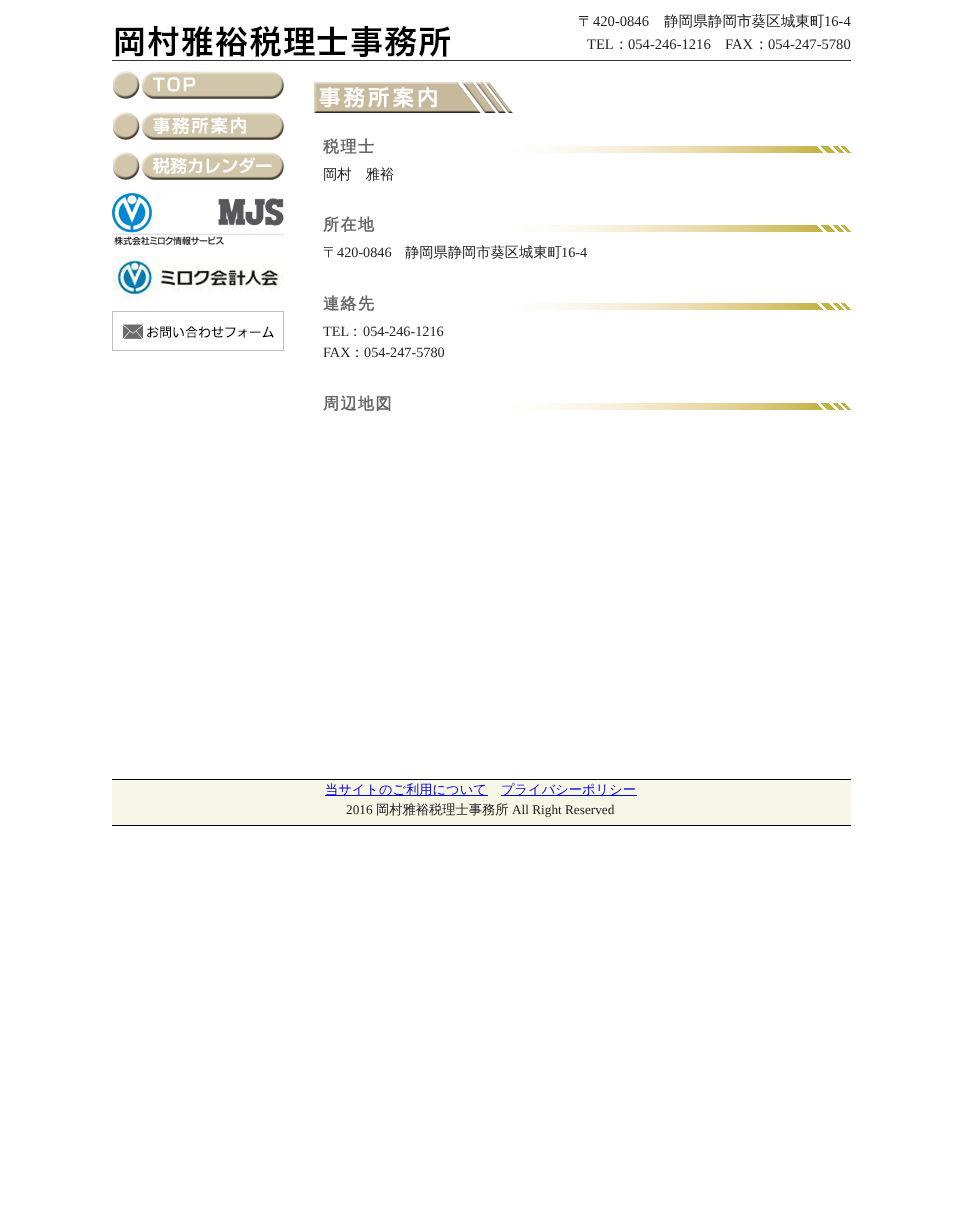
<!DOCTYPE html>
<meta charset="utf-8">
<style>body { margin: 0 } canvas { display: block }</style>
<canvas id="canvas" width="962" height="1222"></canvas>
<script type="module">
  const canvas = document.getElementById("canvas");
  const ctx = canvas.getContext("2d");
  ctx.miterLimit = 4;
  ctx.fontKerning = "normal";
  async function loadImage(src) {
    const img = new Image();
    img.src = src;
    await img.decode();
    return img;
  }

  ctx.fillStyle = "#ffffff";
  ctx.fillRect(0, 0, 962, 1222);
  ctx.fillStyle = "#333333";
  ctx.fillRect(112, 60, 739, 1);
  ctx.drawImage(await loadImage("img1.png"), 115, 26, 335, 31);
  ctx.font = "500 14.6px WenQuanYi Zen Hei";
  ctx.fillStyle = "#222222";
  ctx.fillText("〒", 578, 26);
  ctx.font = "14.6px Liberation Serif";
  ctx.fillText("420-0846", 593, 26);
  ctx.font = "500 14.6px WenQuanYi Zen Hei";
  ctx.fillText("静岡県静岡市葵区城東町", 664, 26);
  ctx.font = "14.6px Liberation Serif";
  ctx.fillText("16-4", 824, 26);
  ctx.fillText("TEL", 587, 49);
  ctx.font = "500 14.6px WenQuanYi Zen Hei";
  ctx.fillText("：", 614, 49);
  ctx.font = "14.6px Liberation Serif";
  ctx.fillText("054-246-1216", 628, 49);
  ctx.fillText("FAX", 725, 49);
  ctx.font = "500 14.6px WenQuanYi Zen Hei";
  ctx.fillText("：", 754, 49);
  ctx.font = "14.6px Liberation Serif";
  ctx.fillText("054-247-5780", 768, 49);
  ctx.drawImage(await loadImage("img2.png"), 113, 71, 171, 28);
  ctx.drawImage(await loadImage("img3.png"), 113, 112, 171, 28);
  ctx.drawImage(await loadImage("img4.png"), 113, 152, 171, 28);
  ctx.drawImage(await loadImage("img5.png"), 112, 193, 172, 52);
  ctx.drawImage(await loadImage("img6.png"), 112, 256, 172, 43);
  ctx.drawImage(await loadImage("img7.png"), 112, 311, 172, 40);
  ctx.drawImage(await loadImage("img8.png"), 314, 82, 199, 31);
  ctx.drawImage(await loadImage("img9.png"), 511, 146, 340, 7);
  ctx.letterSpacing = "1.5px";
  ctx.font = "bold 16px WenQuanYi Zen Hei";
  ctx.fillStyle = "#666666";
  ctx.fillText("税理士", 323, 152);
  ctx.letterSpacing = "0px";
  ctx.font = "500 14.25px WenQuanYi Zen Hei";
  ctx.fillStyle = "#222222";
  ctx.fillText("岡村　雅裕", 323, 179);
  ctx.drawImage(await loadImage("img9.png"), 511, 225, 340, 7);
  ctx.letterSpacing = "1.5px";
  ctx.font = "bold 16px WenQuanYi Zen Hei";
  ctx.fillStyle = "#666666";
  ctx.fillText("所在地", 323, 230);
  ctx.letterSpacing = "0px";
  ctx.font = "500 14.25px WenQuanYi Zen Hei";
  ctx.fillStyle = "#222222";
  ctx.fillText("〒", 323, 257);
  ctx.font = "14.25px Liberation Serif";
  ctx.fillText("420-0846", 337, 257);
  ctx.font = "500 14.25px WenQuanYi Zen Hei";
  ctx.fillText("静岡県静岡市葵区城東町", 405, 257);
  ctx.font = "14.25px Liberation Serif";
  ctx.fillText("16-4", 561, 257);
  ctx.drawImage(await loadImage("img9.png"), 511, 303, 340, 7);
  ctx.letterSpacing = "1.5px";
  ctx.font = "bold 16px WenQuanYi Zen Hei";
  ctx.fillStyle = "#666666";
  ctx.fillText("連絡先", 323, 309);
  ctx.letterSpacing = "0px";
  ctx.font = "14.25px Liberation Serif";
  ctx.fillStyle = "#222222";
  ctx.fillText("TEL", 323, 336);
  ctx.font = "500 14.25px WenQuanYi Zen Hei";
  ctx.fillText("：", 348, 336);
  ctx.font = "14.25px Liberation Serif";
  ctx.fillText("054-246-1216", 363, 336);
  ctx.fillText("FAX", 323, 357);
  ctx.font = "500 14.25px WenQuanYi Zen Hei";
  ctx.fillText("：", 350, 357);
  ctx.font = "14.25px Liberation Serif";
  ctx.fillText("054-247-5780", 364, 357);
  ctx.drawImage(await loadImage("img9.png"), 511, 403, 340, 7);
  ctx.letterSpacing = "1.5px";
  ctx.font = "bold 16px WenQuanYi Zen Hei";
  ctx.fillStyle = "#666666";
  ctx.fillText("周辺地図", 323, 409);
  ctx.fillStyle = "#f8f6e7";
  ctx.fillRect(112, 780, 739, 45);
  ctx.fillStyle = "#000000";
  ctx.fillRect(112, 779, 739, 1);
  ctx.fillRect(112, 825, 739, 1);
  ctx.fillStyle = "#0000ee";
  ctx.fillRect(325, 795, 163, 1);
  ctx.letterSpacing = "0px";
  ctx.font = "500 13.25px WenQuanYi Zen Hei";
  ctx.fillText("当サイトのご利用について", 325, 794);
  ctx.fillRect(501, 795, 136, 1);
  ctx.fillText("プライバシーポリシー", 501, 794);
  ctx.font = "13.25px Liberation Serif";
  ctx.fillStyle = "#222222";
  ctx.fillText("2016", 346, 814);
  ctx.font = "500 13.25px WenQuanYi Zen Hei";
  ctx.fillText("岡村雅裕税理士事務所", 376, 814);
  ctx.font = "13.25px Liberation Serif";
  ctx.fillText("All Right Reserved", 512, 814);
</script>
